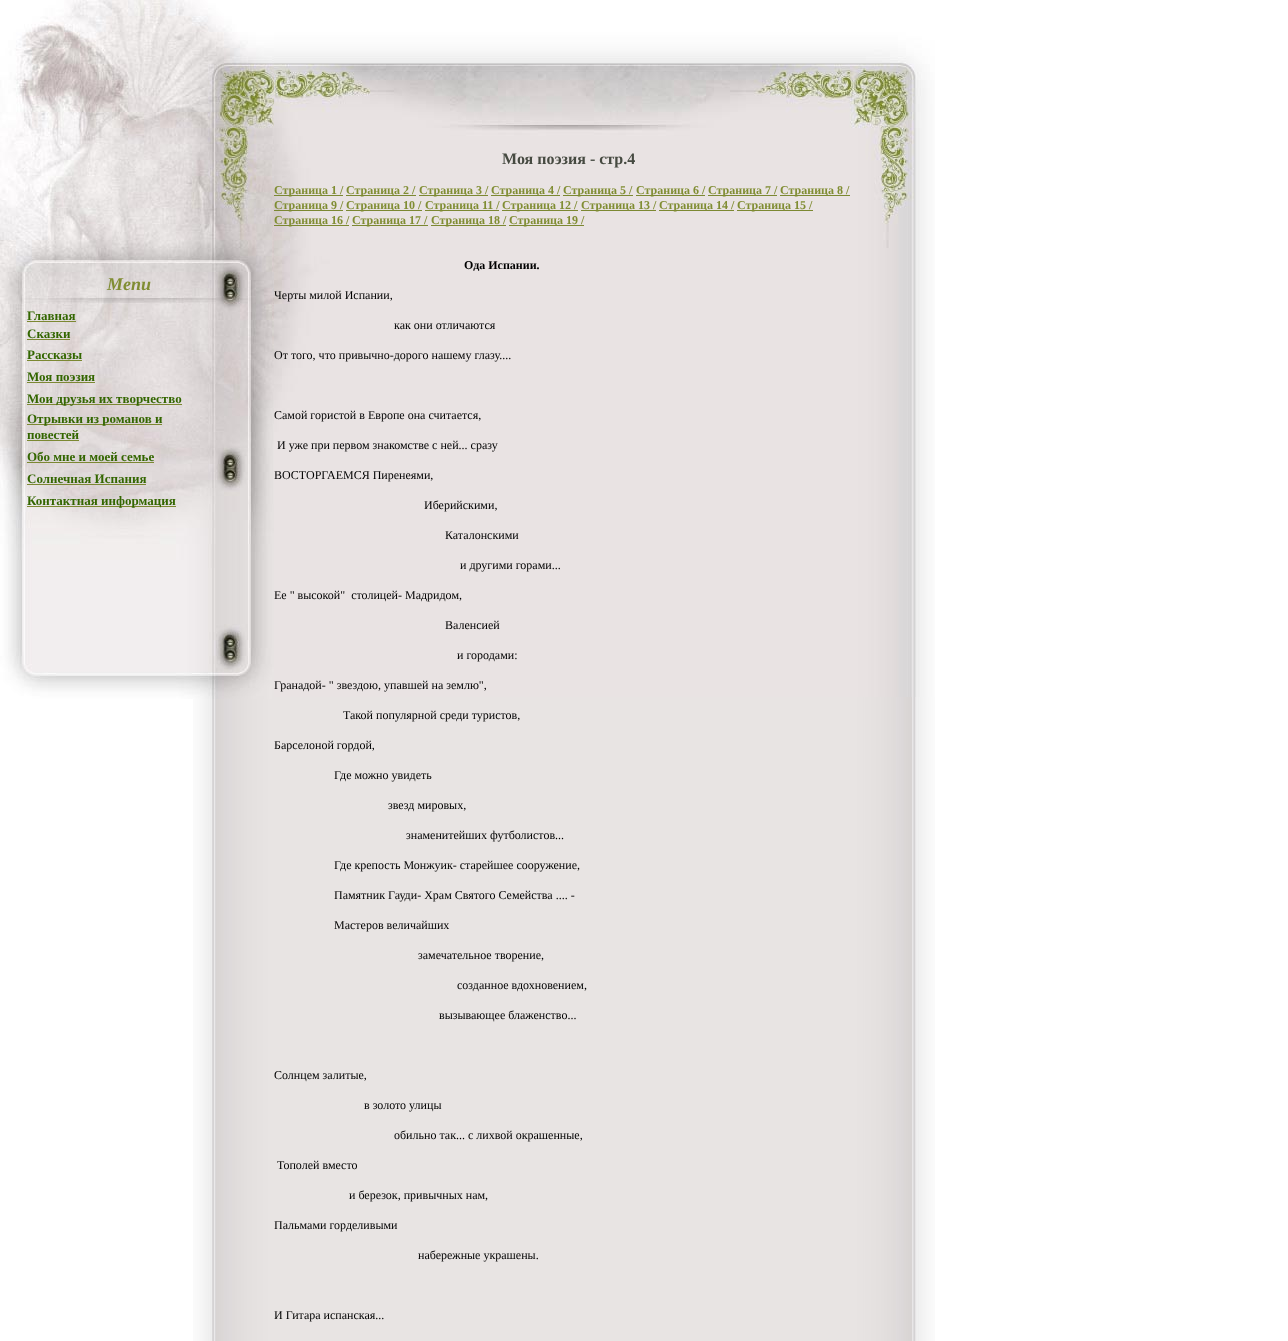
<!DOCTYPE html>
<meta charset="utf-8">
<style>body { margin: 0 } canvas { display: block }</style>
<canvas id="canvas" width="1288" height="1341"></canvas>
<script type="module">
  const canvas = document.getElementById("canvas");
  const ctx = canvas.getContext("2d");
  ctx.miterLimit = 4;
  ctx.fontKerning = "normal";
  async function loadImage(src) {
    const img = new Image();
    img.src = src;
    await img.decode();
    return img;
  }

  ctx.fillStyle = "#ffffff";
  ctx.fillRect(0, 0, 1288, 1341);
  ctx.drawImage(await loadImage("img1.png"), 193, 697, 742, 644);
  ctx.drawImage(await loadImage("img2.png"), 0, 0, 274, 699);
  ctx.font = "italic bold 18px Liberation Serif";
  ctx.fillStyle = "#808d33";
  ctx.fillText("Menu", 107, 290);
  ctx.font = "bold 13px Liberation Serif";
  ctx.fillStyle = "#336600";
  ctx.fillText("Главная", 27, 320);
  ctx.fillStyle = "#7c8832";
  ctx.fillRect(27, 321, 49, 1);
  ctx.fillStyle = "#336600";
  ctx.fillText("Сказки", 27, 338);
  ctx.fillStyle = "#7c8832";
  ctx.fillRect(27, 339, 43, 1);
  ctx.fillStyle = "#336600";
  ctx.fillText("Рассказы", 27, 359);
  ctx.fillStyle = "#7c8832";
  ctx.fillRect(27, 360, 55, 1);
  ctx.fillStyle = "#336600";
  ctx.fillText("Моя поэзия", 27, 381);
  ctx.fillStyle = "#7c8832";
  ctx.fillRect(27, 382, 68, 1);
  ctx.fillRect(27, 404, 155, 1);
  ctx.fillStyle = "#336600";
  ctx.fillText("Мои друзья их творчество", 27, 403);
  ctx.fillStyle = "#7c8832";
  ctx.fillRect(27, 424, 135, 1);
  ctx.fillStyle = "#336600";
  ctx.fillText("Отрывки из романов и", 27, 423);
  ctx.fillText("повестей", 27, 439);
  ctx.fillStyle = "#7c8832";
  ctx.fillRect(27, 440, 52, 1);
  ctx.fillStyle = "#336600";
  ctx.fillText("Обо мне и моей семье", 27, 461);
  ctx.fillStyle = "#7c8832";
  ctx.fillRect(27, 462, 127, 1);
  ctx.fillStyle = "#336600";
  ctx.fillText("Солнечная Испания", 27, 483);
  ctx.fillStyle = "#7c8832";
  ctx.fillRect(27, 484, 119, 1);
  ctx.fillRect(27, 506, 149, 1);
  ctx.fillStyle = "#336600";
  ctx.fillText("Контактная информация", 27, 505);
  ctx.drawImage(await loadImage("img3.png"), 274, 0, 661, 697);
  ctx.font = "bold 16px Liberation Serif";
  ctx.fillStyle = "#464a41";
  ctx.fillText("Моя поэзия - стр.4", 502, 164);
  ctx.fillStyle = "#7c8832";
  ctx.fillRect(274, 195, 69, 1);
  ctx.font = "bold 12px Liberation Serif";
  ctx.fillStyle = "#808d33";
  ctx.fillText("Страница 1 /", 274, 194);
  ctx.fillStyle = "#7c8832";
  ctx.fillRect(346, 195, 70, 1);
  ctx.fillStyle = "#808d33";
  ctx.fillText("Страница 2 /", 346, 194);
  ctx.fillStyle = "#7c8832";
  ctx.fillRect(419, 195, 69, 1);
  ctx.fillStyle = "#808d33";
  ctx.fillText("Страница 3 /", 419, 194);
  ctx.fillStyle = "#7c8832";
  ctx.fillRect(491, 195, 69, 1);
  ctx.fillStyle = "#808d33";
  ctx.fillText("Страница 4 /", 491, 194);
  ctx.fillStyle = "#7c8832";
  ctx.fillRect(563, 195, 70, 1);
  ctx.fillStyle = "#808d33";
  ctx.fillText("Страница 5 /", 563, 194);
  ctx.fillStyle = "#7c8832";
  ctx.fillRect(636, 195, 69, 1);
  ctx.fillStyle = "#808d33";
  ctx.fillText("Страница 6 /", 636, 194);
  ctx.fillStyle = "#7c8832";
  ctx.fillRect(708, 195, 69, 1);
  ctx.fillStyle = "#808d33";
  ctx.fillText("Страница 7 /", 708, 194);
  ctx.fillStyle = "#7c8832";
  ctx.fillRect(780, 195, 70, 1);
  ctx.fillStyle = "#808d33";
  ctx.fillText("Страница 8 /", 780, 194);
  ctx.fillStyle = "#7c8832";
  ctx.fillRect(274, 210, 69, 1);
  ctx.fillStyle = "#808d33";
  ctx.fillText("Страница 9 /", 274, 209);
  ctx.fillStyle = "#7c8832";
  ctx.fillRect(346, 210, 76, 1);
  ctx.fillStyle = "#808d33";
  ctx.fillText("Страница 10 /", 346, 209);
  ctx.fillStyle = "#7c8832";
  ctx.fillRect(425, 210, 74, 1);
  ctx.fillStyle = "#808d33";
  ctx.fillText("Страница 11 /", 425, 209);
  ctx.fillStyle = "#7c8832";
  ctx.fillRect(502, 210, 76, 1);
  ctx.fillStyle = "#808d33";
  ctx.fillText("Страница 12 /", 502, 209);
  ctx.fillStyle = "#7c8832";
  ctx.fillRect(581, 210, 75, 1);
  ctx.fillStyle = "#808d33";
  ctx.fillText("Страница 13 /", 581, 209);
  ctx.fillStyle = "#7c8832";
  ctx.fillRect(659, 210, 75, 1);
  ctx.fillStyle = "#808d33";
  ctx.fillText("Страница 14 /", 659, 209);
  ctx.fillStyle = "#7c8832";
  ctx.fillRect(737, 210, 76, 1);
  ctx.fillStyle = "#808d33";
  ctx.fillText("Страница 15 /", 737, 209);
  ctx.fillStyle = "#7c8832";
  ctx.fillRect(274, 225, 75, 1);
  ctx.fillStyle = "#808d33";
  ctx.fillText("Страница 16 /", 274, 224);
  ctx.fillStyle = "#7c8832";
  ctx.fillRect(352, 225, 76, 1);
  ctx.fillStyle = "#808d33";
  ctx.fillText("Страница 17 /", 352, 224);
  ctx.fillStyle = "#7c8832";
  ctx.fillRect(431, 225, 75, 1);
  ctx.fillStyle = "#808d33";
  ctx.fillText("Страница 18 /", 431, 224);
  ctx.fillStyle = "#7c8832";
  ctx.fillRect(509, 225, 75, 1);
  ctx.fillStyle = "#808d33";
  ctx.fillText("Страница 19 /", 509, 224);
  ctx.fillStyle = "#000000";
  ctx.fillText("Ода Испании.", 464, 269);
  ctx.font = "12px Liberation Serif";
  ctx.fillText("Черты милой Испании,", 274, 299);
  ctx.fillText("как они отличаются", 394, 329);
  ctx.fillText("От того, что привычно-дорого нашему глазу....", 274, 359);
  ctx.fillText("Самой гористой в Европе она считается,", 274, 419);
  ctx.fillText("И уже при первом знакомстве с ней... сразу", 277, 449);
  ctx.fillText("ВОСТОРГАЕМСЯ Пиренеями,", 274, 479);
  ctx.fillText("Иберийскими,", 424, 509);
  ctx.fillText("Каталонскими", 445, 539);
  ctx.fillText("и другими горами...", 460, 569);
  ctx.fillText("Ее \" высокой\"  столицей- Мадридом,", 274, 599);
  ctx.fillText("Валенсией", 445, 629);
  ctx.fillText("и городами:", 457, 659);
  ctx.fillText("Гранадой- \" звездою, упавшей на землю\",", 274, 689);
  ctx.fillText("Такой популярной среди туристов,", 343, 719);
  ctx.fillText("Барселоной гордой,", 274, 749);
  ctx.fillText("Где можно увидеть", 334, 779);
  ctx.fillText("звезд мировых,", 388, 809);
  ctx.fillText("знаменитейших футболистов...", 406, 839);
  ctx.fillText("Где крепость Монжуик- старейшее сооружение,", 334, 869);
  ctx.fillText("Памятник Гауди- Храм Святого Семейства .... -", 334, 899);
  ctx.fillText("Мастеров величайших", 334, 929);
  ctx.fillText("замечательное творение,", 418, 959);
  ctx.fillText("созданное вдохновением,", 457, 989);
  ctx.fillText("вызывающее блаженство...", 439, 1019);
  ctx.fillText("Солнцем залитые,", 274, 1079);
  ctx.fillText("в золото улицы", 364, 1109);
  ctx.fillText("обильно так... с лихвой окрашенные,", 394, 1139);
  ctx.fillText("Тополей вместо", 277, 1169);
  ctx.fillText("и березок, привычных нам,", 349, 1199);
  ctx.fillText("Пальмами горделивыми", 274, 1229);
  ctx.fillText("набережные украшены.", 418, 1259);
  ctx.fillText("И Гитара испанская...", 274, 1319);
</script>
